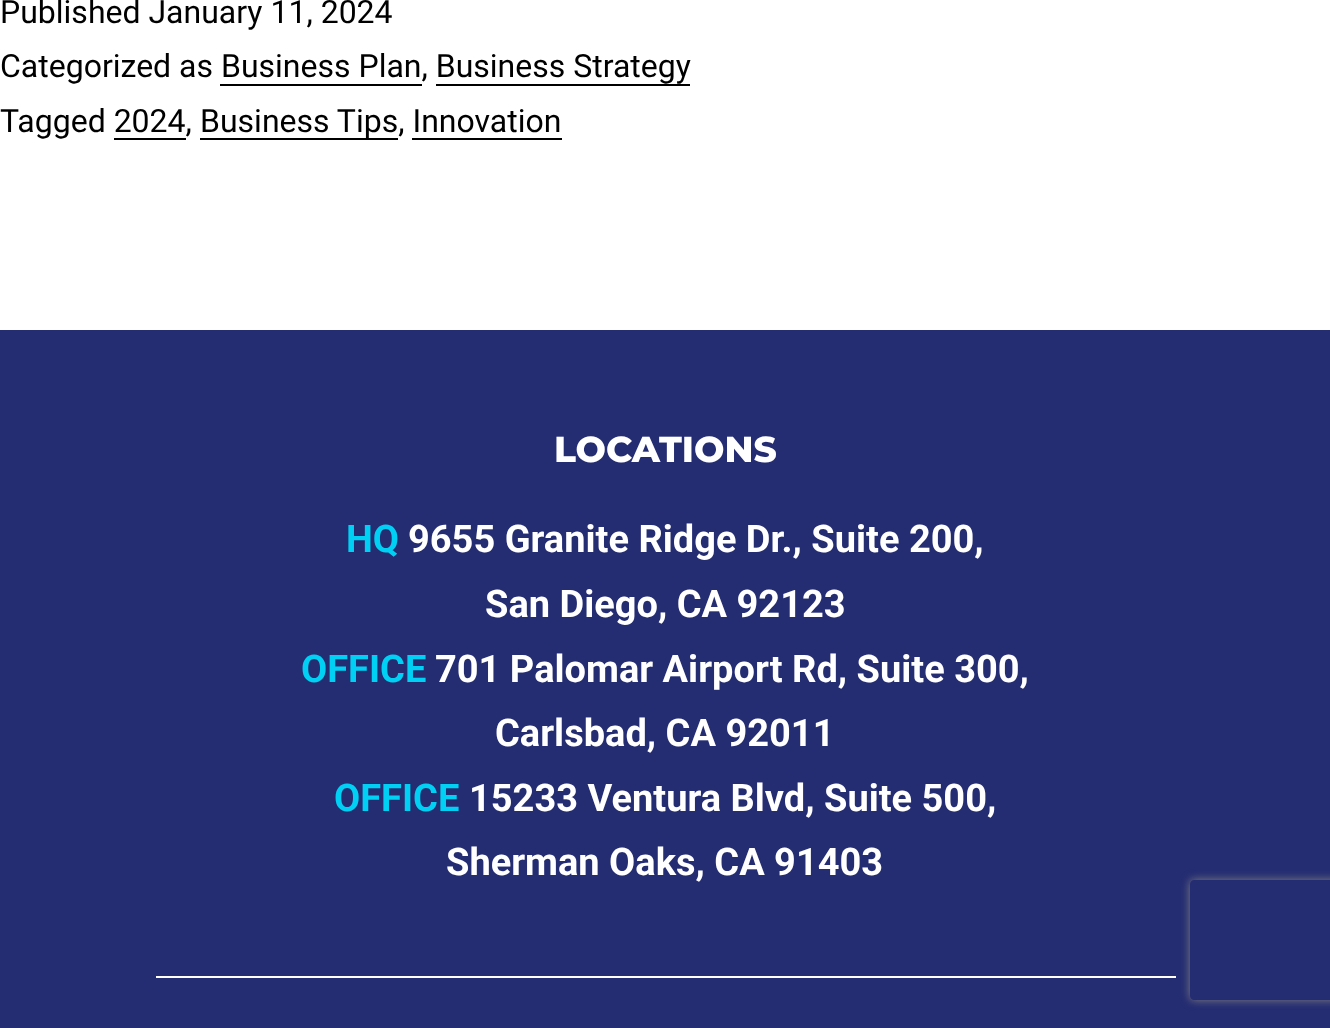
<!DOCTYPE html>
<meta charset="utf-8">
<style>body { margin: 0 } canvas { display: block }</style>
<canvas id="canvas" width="1330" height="1028"></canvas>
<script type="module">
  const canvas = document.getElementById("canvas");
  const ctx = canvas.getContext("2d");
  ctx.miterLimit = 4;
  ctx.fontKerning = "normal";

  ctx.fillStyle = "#ffffff";
  ctx.fillRect(0, 0, 1330, 1028);
  ctx.font = "32px Roboto";
  ctx.fillStyle = "#000000";
  ctx.fillText("Published January 11, 2024", 0, 23);
  ctx.fillText("Categorized as Business Plan, Business Strategy", 0, 77);
  ctx.fillRect(220, 84, 202, 2);
  ctx.fillRect(436, 84, 254, 2);
  ctx.fillText("Tagged 2024,", 0, 132);
  ctx.fillRect(200, 138, 198, 2);
  ctx.fillText("Business Tips, Innovation", 200, 132);
  ctx.fillRect(114, 138, 72, 2);
  ctx.fillRect(412, 138, 150, 2);
  ctx.fillStyle = "#242c72";
  ctx.fillRect(0, 330, 1330, 698);
  ctx.font = "800 36px Montserrat";
  ctx.fillStyle = "#ffffff";
  ctx.fillText("LOCATIONS", 554, 462);
  ctx.font = "bold 38px Roboto";
  ctx.fillStyle = "#00d0f3";
  ctx.fillText("HQ", 346, 552);
  ctx.fillStyle = "#ffffff";
  ctx.fillText("9655 Granite Ridge Dr., Suite 200,", 408, 552);
  ctx.fillText("San Diego, CA 92123", 485, 617);
  ctx.fillStyle = "#00d0f3";
  ctx.fillText("OFFICE", 301, 682);
  ctx.fillStyle = "#ffffff";
  ctx.fillText("701 Palomar Airport Rd, Suite 300,", 435, 682);
  ctx.fillText("Carlsbad, CA 92011", 495, 746);
  ctx.fillStyle = "#00d0f3";
  ctx.fillText("OFFICE", 334, 811);
  ctx.fillStyle = "#ffffff";
  ctx.fillText("15233 Ventura Blvd, Suite 500,", 469, 811);
  ctx.fillText("Sherman Oaks, CA 91403", 446, 875);
  ctx.fillRect(156, 976, 1020, 2);
  ctx.save();
  ctx.beginPath();
  ctx.moveTo(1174, 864);
  ctx.lineTo(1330, 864);
  ctx.lineTo(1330, 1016);
  ctx.lineTo(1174, 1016);
  ctx.closePath();
  ctx.moveTo(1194, 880);
  ctx.lineTo(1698, 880);
  ctx.bezierCurveTo(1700, 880, 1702, 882, 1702, 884);
  ctx.lineTo(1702, 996);
  ctx.bezierCurveTo(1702, 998, 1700, 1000, 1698, 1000);
  ctx.lineTo(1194, 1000);
  ctx.bezierCurveTo(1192, 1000, 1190, 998, 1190, 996);
  ctx.lineTo(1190, 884);
  ctx.bezierCurveTo(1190, 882, 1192, 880, 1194, 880);
  ctx.closePath();
  ctx.clip("evenodd");
  ctx.fillStyle = "#808080";
  ctx.filter = "blur(5px)";
  ctx.beginPath();
  ctx.roundRect(1190, 880, 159, 120, 4);
  ctx.fill();
  ctx.filter = "none";
  ctx.restore();
</script>
